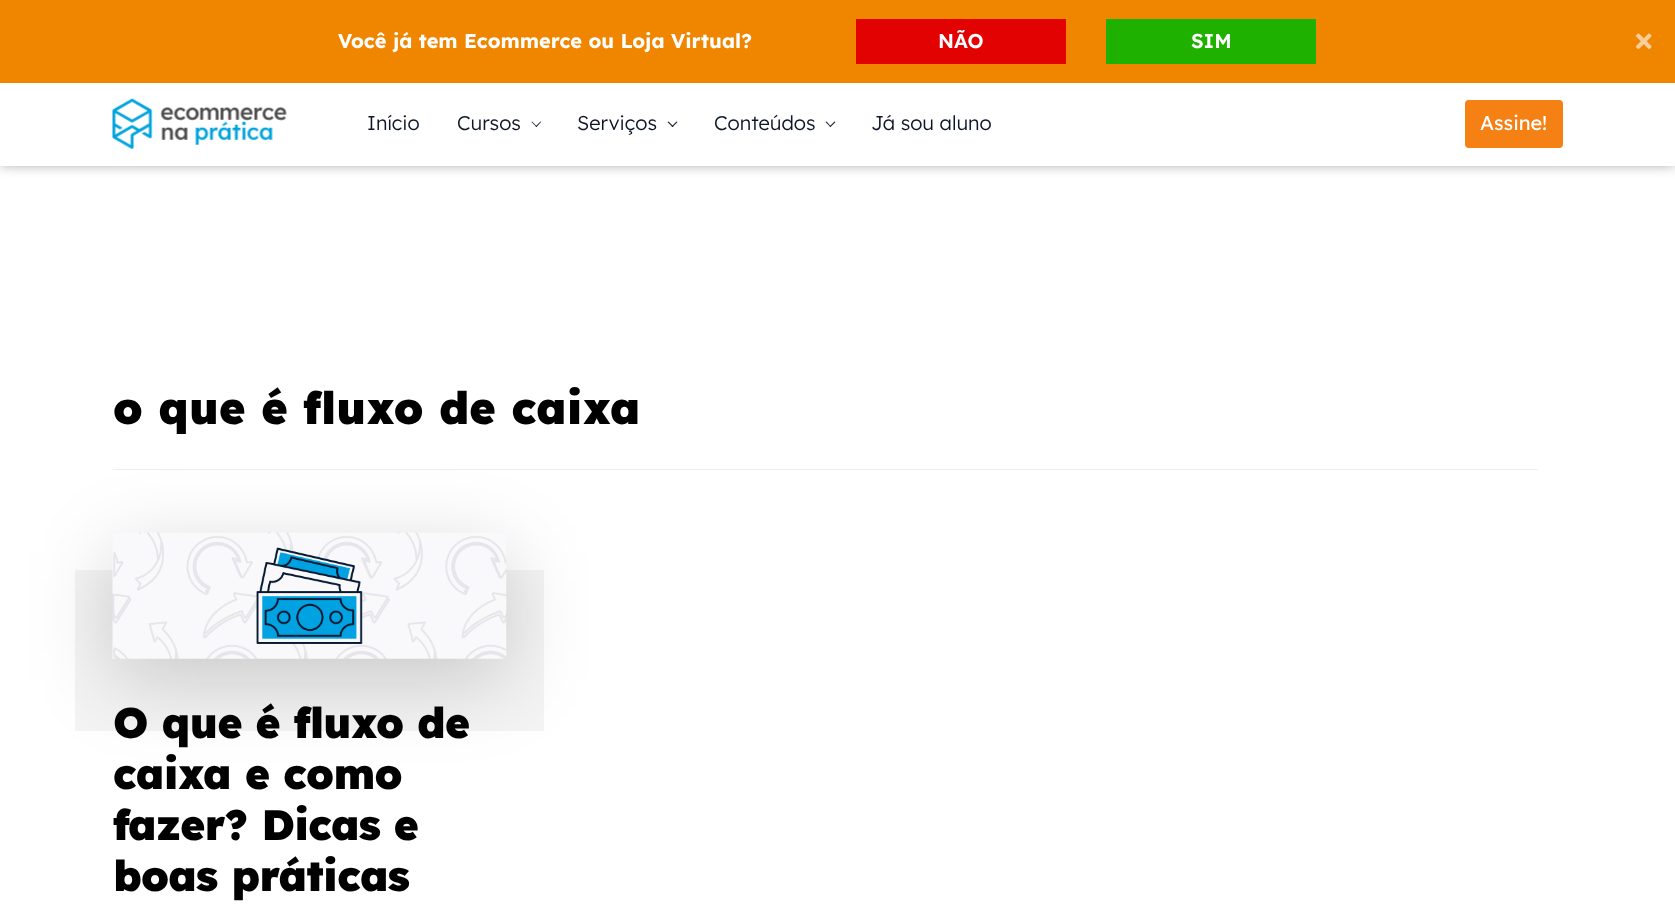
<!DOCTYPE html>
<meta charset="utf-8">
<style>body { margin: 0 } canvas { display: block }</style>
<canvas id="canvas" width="1675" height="919"></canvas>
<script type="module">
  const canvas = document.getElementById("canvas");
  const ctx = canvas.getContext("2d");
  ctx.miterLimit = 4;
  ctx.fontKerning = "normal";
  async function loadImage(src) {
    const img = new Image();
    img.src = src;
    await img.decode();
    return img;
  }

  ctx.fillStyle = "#ffffff";
  ctx.fillRect(0, 0, 1675, 919);
  ctx.fillStyle = "rgba(0, 0, 0, 0.3)";
  ctx.filter = "blur(6px)";
  ctx.beginPath();
  ctx.rect(0, 81, 1675, 85);
  ctx.fill();
  ctx.filter = "none";
  ctx.fillStyle = "#f08600";
  ctx.fillRect(0, 0, 1675, 83);
  ctx.font = "bold 20px Lexend Deca";
  ctx.fillStyle = "#ffffff";
  ctx.fillText("Você já tem Ecommerce ou Loja Virtual?", 338, 48);
  ctx.fillStyle = "#e20202";
  ctx.fillRect(856, 19, 210, 45);
  ctx.font = "600 20px Lexend Deca";
  ctx.fillStyle = "#ffffff";
  ctx.fillText("NÃO", 938, 48);
  ctx.fillStyle = "#1fb100";
  ctx.fillRect(1106, 19, 210, 45);
  ctx.fillStyle = "#ffffff";
  ctx.fillText("SIM", 1191, 48);
  ctx.drawImage(await loadImage("img1.png"), 1636, 33, 16, 16);
  ctx.fillRect(0, 83, 1675, 83);
  ctx.drawImage(await loadImage("img2.png"), 112, 98, 175, 51);
  ctx.font = "300 20px Lexend Deca";
  ctx.fillStyle = "#0d1527";
  ctx.fillText("Início", 367, 130);
  ctx.fillText("Cursos", 457, 130);
  ctx.beginPath();
  ctx.moveTo(541, 122);
  ctx.lineTo(536.5, 127);
  ctx.lineTo(535.5, 126.5);
  ctx.lineTo(540.5, 121.5);
  ctx.closePath();
  ctx.fill();
  ctx.beginPath();
  ctx.moveTo(537, 126.5);
  ctx.lineTo(536.5, 127);
  ctx.lineTo(531.5, 122);
  ctx.lineTo(532, 121.5);
  ctx.closePath();
  ctx.fill();
  ctx.fillText("Serviços", 577, 130);
  ctx.beginPath();
  ctx.moveTo(677.5, 122);
  ctx.lineTo(672.5, 127);
  ctx.lineTo(671.5, 126.5);
  ctx.lineTo(676.5, 121.5);
  ctx.closePath();
  ctx.fill();
  ctx.beginPath();
  ctx.moveTo(673.5, 126.5);
  ctx.lineTo(672.5, 127);
  ctx.lineTo(667.5, 122);
  ctx.lineTo(668.5, 121.5);
  ctx.closePath();
  ctx.fill();
  ctx.fillText("Conteúdos", 714, 130);
  ctx.beginPath();
  ctx.moveTo(835.5, 122);
  ctx.lineTo(830.5, 127);
  ctx.lineTo(829.5, 126.5);
  ctx.lineTo(834.5, 121.5);
  ctx.closePath();
  ctx.fill();
  ctx.beginPath();
  ctx.moveTo(831, 126.5);
  ctx.lineTo(830.5, 127);
  ctx.lineTo(825.5, 122);
  ctx.lineTo(826.5, 121.5);
  ctx.closePath();
  ctx.fill();
  ctx.fillText("Já sou aluno", 871, 130);
  ctx.fillStyle = "#f58014";
  ctx.beginPath();
  ctx.roundRect(1465, 100, 98, 48, 4);
  ctx.fill();
  ctx.font = "20px Lexend Deca";
  ctx.fillStyle = "#ffffff";
  ctx.fillText("Assine!", 1480, 130);
  ctx.font = "900 45px Lexend Deca";
  ctx.fillStyle = "#000000";
  ctx.fillText("o que é fluxo de caixa", 113, 424);
  ctx.fillStyle = "#eeeeee";
  ctx.fillRect(113, 469, 1425, 1);
  ctx.fillStyle = "#f4f4f4";
  ctx.fillRect(75, 570, 469, 161);
  ctx.fillStyle = "rgba(0, 0, 0, 0.18)";
  ctx.filter = "blur(40.5px)";
  ctx.beginPath();
  ctx.rect(113, 553, 393, 126);
  ctx.fill();
  ctx.filter = "none";
  ctx.drawImage(await loadImage("img3.png"), 112, 532, 395, 127);
  ctx.letterSpacing = "-0.8px";
  ctx.font = "900 42.5px Lexend Deca";
  ctx.fillStyle = "#000000";
  ctx.fillText("O que é fluxo de", 113, 738);
  ctx.fillText("caixa e como", 113, 789);
  ctx.fillText("fazer? Dicas e", 113, 840);
  ctx.fillText("boas práticas", 113, 891);
</script>
